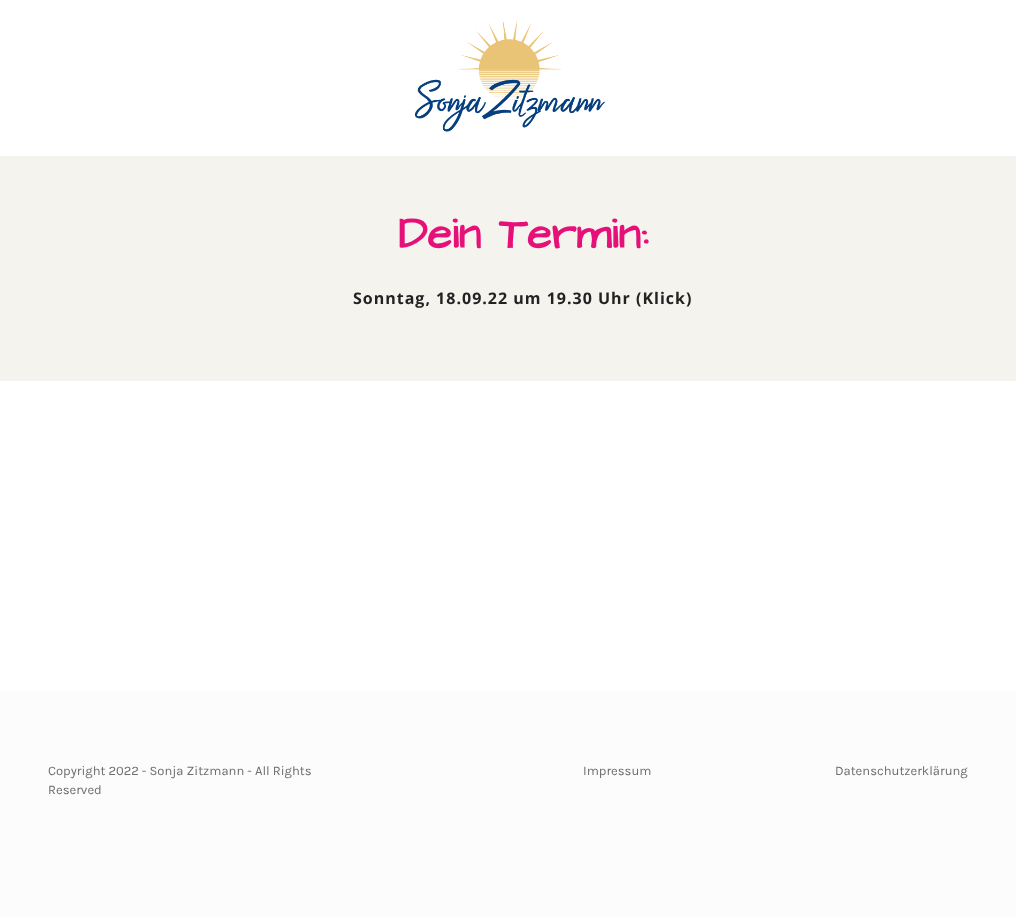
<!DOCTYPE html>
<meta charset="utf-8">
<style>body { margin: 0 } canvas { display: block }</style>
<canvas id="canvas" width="1016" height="918"></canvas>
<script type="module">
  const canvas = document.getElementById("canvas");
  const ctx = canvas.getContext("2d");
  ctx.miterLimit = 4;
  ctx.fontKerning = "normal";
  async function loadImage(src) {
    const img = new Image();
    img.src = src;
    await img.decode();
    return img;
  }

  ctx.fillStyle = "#ffffff";
  ctx.fillRect(0, 0, 1016, 918);
  ctx.drawImage(await loadImage("img1.png"), 414, 19, 191, 113);
  ctx.fillStyle = "#f4f3ee";
  ctx.fillRect(0, 156, 1016, 225);
  ctx.font = "bold 45px Architects Daughter";
  ctx.fillStyle = "#e51078";
  ctx.fillText("Dein Termin:", 398, 248);
  ctx.letterSpacing = "1px";
  ctx.font = "bold 16px Open Sans";
  ctx.fillStyle = "#222222";
  ctx.fillText("Sonntag, 18.09.22 um 19.30 Uhr (Klick)", 353, 304);
  ctx.fillStyle = "#fcfcfc";
  ctx.fillRect(0, 691, 1016, 227);
  ctx.letterSpacing = "0px";
  ctx.font = "13px Karla";
  ctx.fillStyle = "#6d6d6d";
  ctx.fillText("Copyright 2022 - Sonja Zitzmann - All Rights", 48, 775);
  ctx.fillText("Reserved", 48, 794);
  ctx.fillText("Impressum", 583, 775);
  ctx.fillText("Datenschutzerklärung", 835, 775);
</script>
